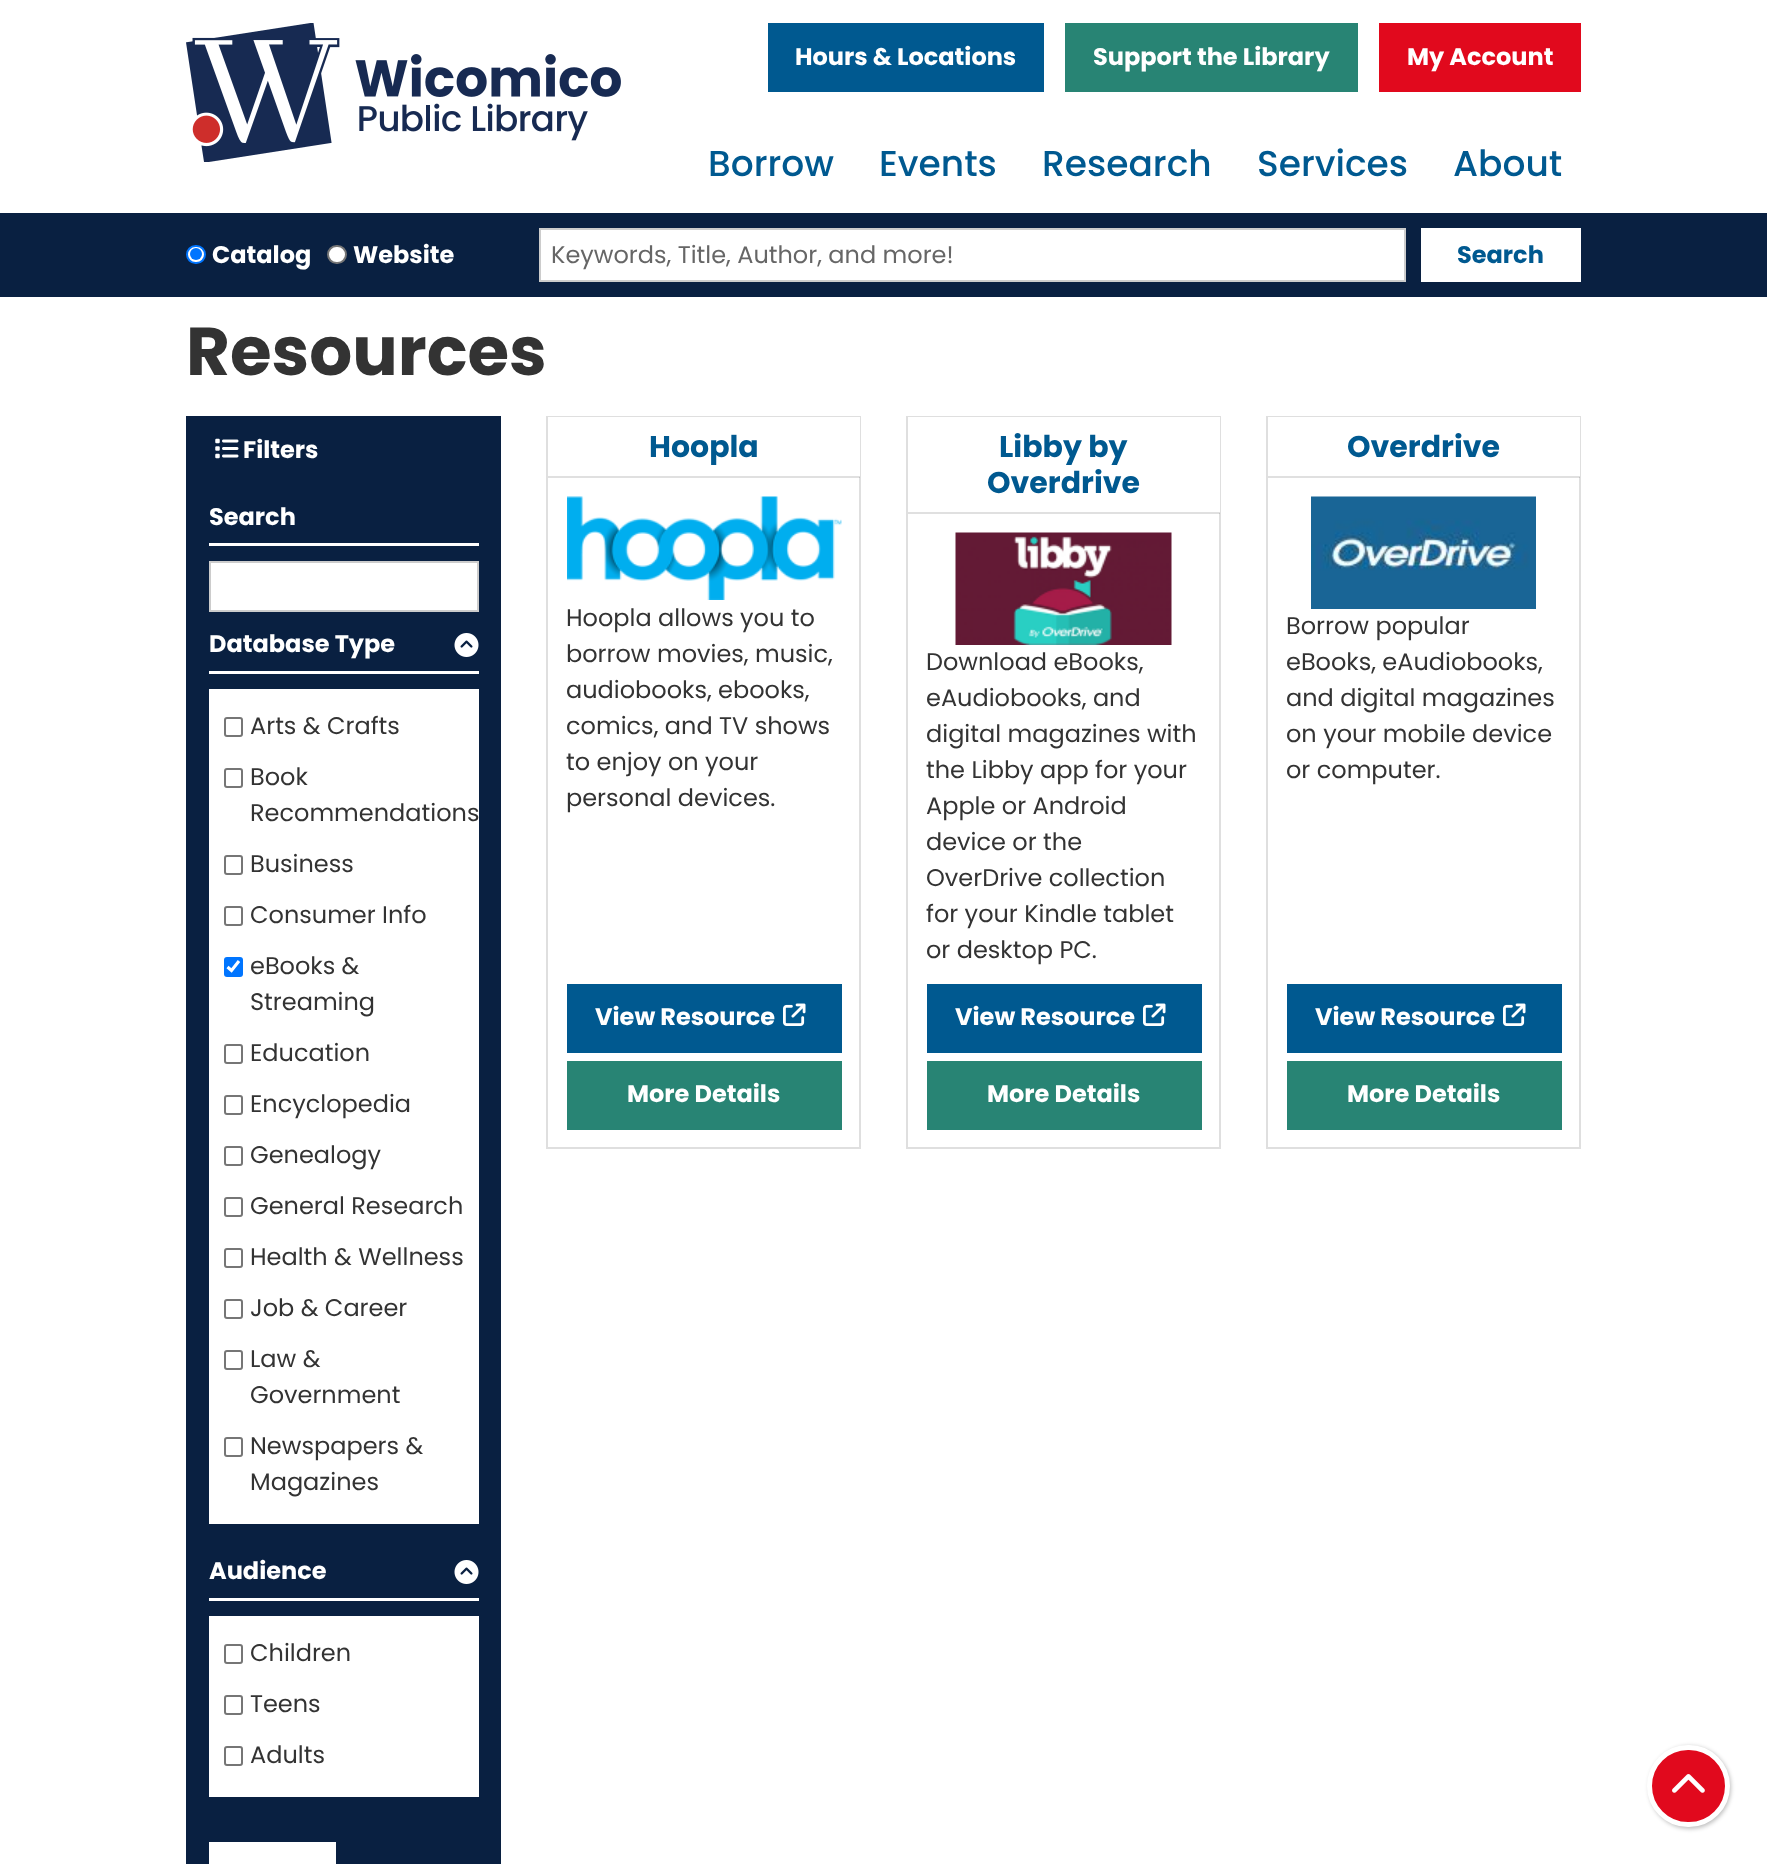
<!DOCTYPE html>
<meta charset="utf-8">
<style>body { margin: 0 } canvas { display: block }</style>
<canvas id="canvas" width="1767" height="1864"></canvas>
<script type="module">
  const canvas = document.getElementById("canvas");
  const ctx = canvas.getContext("2d");
  ctx.miterLimit = 4;
  ctx.fontKerning = "normal";
  async function loadImage(src) {
    const img = new Image();
    img.src = src;
    await img.decode();
    return img;
  }

  ctx.fillStyle = "#ffffff";
  ctx.fillRect(0, 0, 1767, 1864);
  ctx.drawImage(await loadImage("img1.png"), 186, 23, 435, 139);
  ctx.fillStyle = "#005990";
  ctx.fillRect(768, 23, 276, 69);
  ctx.font = "bold 24px Poppins";
  ctx.fillStyle = "#ffffff";
  ctx.fillText("Hours & Locations", 795, 65);
  ctx.fillStyle = "#288474";
  ctx.fillRect(1065, 23, 293, 69);
  ctx.fillStyle = "#ffffff";
  ctx.fillText("Support the Library", 1093, 65);
  ctx.fillStyle = "#e1091d";
  ctx.fillRect(1379, 23, 202, 69);
  ctx.fillStyle = "#ffffff";
  ctx.fillText("My Account", 1407, 65);
  ctx.font = "500 36px Poppins";
  ctx.fillStyle = "#005990";
  ctx.fillText("Borrow", 708, 176);
  ctx.fillText("Events", 879, 176);
  ctx.fillText("Research", 1042, 176);
  ctx.fillText("Services", 1257, 176);
  ctx.fillText("About", 1453, 176);
  ctx.fillStyle = "#092041";
  ctx.fillRect(0, 213, 1767, 84);
  ctx.fillStyle = "#ffffff";
  ctx.beginPath();
  ctx.roundRect(187, 246, 18, 17, 8.5);
  ctx.fill();
  ctx.strokeStyle = "#0075ff";
  ctx.lineWidth = 2;
  ctx.stroke();
  ctx.fillStyle = "#0075ff";
  ctx.beginPath();
  ctx.arc(196, 254, 6, 0, Math.PI * 2);
  ctx.fill();
  ctx.font = "bold 24px Poppins";
  ctx.fillStyle = "#ffffff";
  ctx.fillText("Catalog", 212, 263);
  ctx.beginPath();
  ctx.roundRect(328, 246, 18, 17, 8.5);
  ctx.fill();
  ctx.strokeStyle = "#767676";
  ctx.stroke();
  ctx.fillText("Website", 353, 263);
  ctx.beginPath();
  ctx.rect(540, 229, 865, 52);
  ctx.fill();
  ctx.strokeStyle = "#cccccc";
  ctx.stroke();
  ctx.font = "24px Poppins";
  ctx.fillStyle = "#666666";
  ctx.fillText("Keywords, Title, Author, and more!", 551, 263);
  ctx.fillStyle = "#ffffff";
  ctx.fillRect(1421, 228, 160, 54);
  ctx.font = "bold 24px Poppins";
  ctx.fillStyle = "#005990";
  ctx.fillText("Search", 1457, 263);
  ctx.font = "bold 67.5px Poppins";
  ctx.fillStyle = "#333333";
  ctx.fillText("Resources", 186, 375);
  ctx.fillStyle = "#092041";
  ctx.fillRect(186, 416, 315, 1448);
  ctx.drawImage(await loadImage("img2.png"), 215, 438, 24, 21);
  ctx.font = "bold 24px Poppins";
  ctx.fillStyle = "#ffffff";
  ctx.fillText("Filters", 243, 458);
  ctx.fillRect(209, 543, 270, 3);
  ctx.fillText("Search", 209, 525);
  ctx.beginPath();
  ctx.rect(210, 562, 268, 49);
  ctx.fill();
  ctx.stroke();
  ctx.fillRect(209, 671, 270, 3);
  ctx.fillText("Database Type", 209, 652);
  ctx.drawImage(await loadImage("img3.png"), 454, 633, 25, 24);
  ctx.fillRect(209, 689, 270, 835);
  ctx.beginPath();
  ctx.roundRect(225, 718, 17, 18, 2);
  ctx.strokeStyle = "#767676";
  ctx.stroke();
  ctx.font = "24px Poppins";
  ctx.fillStyle = "#333333";
  ctx.fillText("Arts & Crafts", 250, 734);
  ctx.beginPath();
  ctx.roundRect(225, 769, 17, 18, 2);
  ctx.stroke();
  ctx.fillText("Book", 250, 785);
  ctx.fillText("Recommendations", 250, 821);
  ctx.beginPath();
  ctx.roundRect(225, 856, 17, 18, 2);
  ctx.stroke();
  ctx.fillText("Business", 250, 872);
  ctx.beginPath();
  ctx.roundRect(225, 907, 17, 18, 2);
  ctx.stroke();
  ctx.fillText("Consumer Info", 250, 923);
  ctx.fillStyle = "#0075ff";
  ctx.beginPath();
  ctx.roundRect(224, 957, 19, 20, 3);
  ctx.fill();
  ctx.beginPath();
  ctx.moveTo(227.5, 967);
  ctx.lineTo(231.5, 970.5);
  ctx.lineTo(239, 961);
  ctx.strokeStyle = "#ffffff";
  ctx.lineWidth = 3.1;
  ctx.stroke();
  ctx.fillStyle = "#333333";
  ctx.fillText("eBooks &", 250, 974);
  ctx.fillText("Streaming", 250, 1010);
  ctx.beginPath();
  ctx.roundRect(225, 1045, 17, 18, 2);
  ctx.strokeStyle = "#767676";
  ctx.lineWidth = 2;
  ctx.stroke();
  ctx.fillText("Education", 250, 1061);
  ctx.beginPath();
  ctx.roundRect(225, 1096, 17, 18, 2);
  ctx.stroke();
  ctx.fillText("Encyclopedia", 250, 1112);
  ctx.beginPath();
  ctx.roundRect(225, 1147, 17, 18, 2);
  ctx.stroke();
  ctx.fillText("Genealogy", 250, 1163);
  ctx.beginPath();
  ctx.roundRect(225, 1198, 17, 18, 2);
  ctx.stroke();
  ctx.fillText("General Research", 250, 1214);
  ctx.beginPath();
  ctx.roundRect(225, 1249, 17, 18, 2);
  ctx.stroke();
  ctx.fillText("Health & Wellness", 250, 1265);
  ctx.beginPath();
  ctx.roundRect(225, 1300, 17, 18, 2);
  ctx.stroke();
  ctx.fillText("Job & Career", 250, 1316);
  ctx.beginPath();
  ctx.roundRect(225, 1351, 17, 18, 2);
  ctx.stroke();
  ctx.fillText("Law &", 250, 1367);
  ctx.fillText("Government", 250, 1403);
  ctx.beginPath();
  ctx.roundRect(225, 1438, 17, 18, 2);
  ctx.stroke();
  ctx.fillText("Newspapers &", 250, 1454);
  ctx.fillText("Magazines", 250, 1490);
  ctx.fillStyle = "#ffffff";
  ctx.fillRect(209, 1598, 270, 3);
  ctx.font = "bold 24px Poppins";
  ctx.fillText("Audience", 209, 1579);
  ctx.drawImage(await loadImage("img3.png"), 454, 1560, 25, 24);
  ctx.fillRect(209, 1616, 270, 181);
  ctx.beginPath();
  ctx.roundRect(225, 1645, 17, 18, 2);
  ctx.stroke();
  ctx.font = "24px Poppins";
  ctx.fillStyle = "#333333";
  ctx.fillText("Children", 250, 1661);
  ctx.beginPath();
  ctx.roundRect(225, 1696, 17, 18, 2);
  ctx.stroke();
  ctx.fillText("Teens", 250, 1712);
  ctx.beginPath();
  ctx.roundRect(225, 1747, 17, 18, 2);
  ctx.stroke();
  ctx.fillText("Adults", 250, 1763);
  ctx.fillStyle = "#ffffff";
  ctx.fillRect(209, 1842, 127, 22);
  ctx.strokeStyle = "#dfdfdf";
  ctx.strokeRect(547, 417, 313, 731);
  ctx.fillRect(548, 417, 312, 60);
  ctx.fillStyle = "rgba(0, 0, 0, 0.12)";
  ctx.fillRect(548, 476, 312, 2);
  ctx.font = "bold 30px Poppins";
  ctx.fillStyle = "#005990";
  ctx.fillText("Hoopla", 649, 457);
  ctx.drawImage(await loadImage("img4.png"), 567, 496, 275, 104);
  ctx.font = "24px Poppins";
  ctx.fillStyle = "#333333";
  ctx.fillText("Hoopla allows you to", 566, 626);
  ctx.fillText("borrow movies, music,", 566, 662);
  ctx.fillText("audiobooks, ebooks,", 566, 698);
  ctx.fillText("comics, and TV shows", 566, 734);
  ctx.fillText("to enjoy on your", 566, 770);
  ctx.fillText("personal devices.", 566, 806);
  ctx.fillStyle = "#005990";
  ctx.fillRect(567, 984, 275, 69);
  ctx.font = "bold 24px Poppins";
  ctx.fillStyle = "#ffffff";
  ctx.fillText("View Resource", 595, 1025);
  ctx.drawImage(await loadImage("img5.png"), 783, 1003, 23, 23);
  ctx.fillStyle = "#288474";
  ctx.fillRect(567, 1061, 275, 69);
  ctx.fillStyle = "#ffffff";
  ctx.fillText("More Details", 627, 1102);
  ctx.strokeRect(907, 417, 313, 731);
  ctx.fillRect(908, 417, 312, 96);
  ctx.fillStyle = "rgba(0, 0, 0, 0.12)";
  ctx.fillRect(908, 512, 312, 2);
  ctx.font = "bold 30px Poppins";
  ctx.fillStyle = "#005990";
  ctx.fillText("Libby by", 999, 457);
  ctx.fillText("Overdrive", 987, 493);
  ctx.drawImage(await loadImage("img6.png"), 955, 532, 217, 113);
  ctx.font = "24px Poppins";
  ctx.fillStyle = "#333333";
  ctx.fillText("Download eBooks,", 926, 670);
  ctx.fillText("eAudiobooks, and", 926, 706);
  ctx.fillText("digital magazines with", 926, 742);
  ctx.fillText("the Libby app for your", 926, 778);
  ctx.fillText("Apple or Android", 926, 814);
  ctx.fillText("device or the", 926, 850);
  ctx.fillText("OverDrive collection", 926, 886);
  ctx.fillText("for your Kindle tablet", 926, 922);
  ctx.fillText("or desktop PC.", 926, 958);
  ctx.fillStyle = "#005990";
  ctx.fillRect(927, 984, 275, 69);
  ctx.font = "bold 24px Poppins";
  ctx.fillStyle = "#ffffff";
  ctx.fillText("View Resource", 955, 1025);
  ctx.drawImage(await loadImage("img5.png"), 1143, 1003, 23, 23);
  ctx.fillStyle = "#288474";
  ctx.fillRect(927, 1061, 275, 69);
  ctx.fillStyle = "#ffffff";
  ctx.fillText("More Details", 987, 1102);
  ctx.strokeRect(1267, 417, 313, 731);
  ctx.fillRect(1268, 417, 312, 60);
  ctx.fillStyle = "rgba(0, 0, 0, 0.12)";
  ctx.fillRect(1268, 476, 312, 2);
  ctx.font = "bold 30px Poppins";
  ctx.fillStyle = "#005990";
  ctx.fillText("Overdrive", 1347, 457);
  ctx.drawImage(await loadImage("img7.png"), 1311, 496, 225, 113);
  ctx.font = "24px Poppins";
  ctx.fillStyle = "#333333";
  ctx.fillText("Borrow popular", 1286, 634);
  ctx.fillText("eBooks, eAudiobooks,", 1286, 670);
  ctx.fillText("and digital magazines", 1286, 706);
  ctx.fillText("on your mobile device", 1286, 742);
  ctx.fillText("or computer.", 1286, 778);
  ctx.fillStyle = "#005990";
  ctx.fillRect(1287, 984, 275, 69);
  ctx.font = "bold 24px Poppins";
  ctx.fillStyle = "#ffffff";
  ctx.fillText("View Resource", 1315, 1025);
  ctx.drawImage(await loadImage("img5.png"), 1503, 1003, 23, 23);
  ctx.fillStyle = "#288474";
  ctx.fillRect(1287, 1061, 275, 69);
  ctx.fillStyle = "#ffffff";
  ctx.fillText("More Details", 1347, 1102);
  ctx.fillStyle = "rgba(0, 0, 0, 0.25)";
  ctx.filter = "blur(2px)";
  ctx.beginPath();
  ctx.roundRect(1649, 1746, 82, 83, 41);
  ctx.fill();
  ctx.filter = "none";
  ctx.fillStyle = "#e1091d";
  ctx.beginPath();
  ctx.roundRect(1649.5, 1747.5, 78, 77, 38.5);
  ctx.fill();
  ctx.strokeStyle = "#ffffff";
  ctx.lineWidth = 5;
  ctx.stroke();
  ctx.drawImage(await loadImage("img8.png"), 1672, 1774, 33, 19);
</script>
